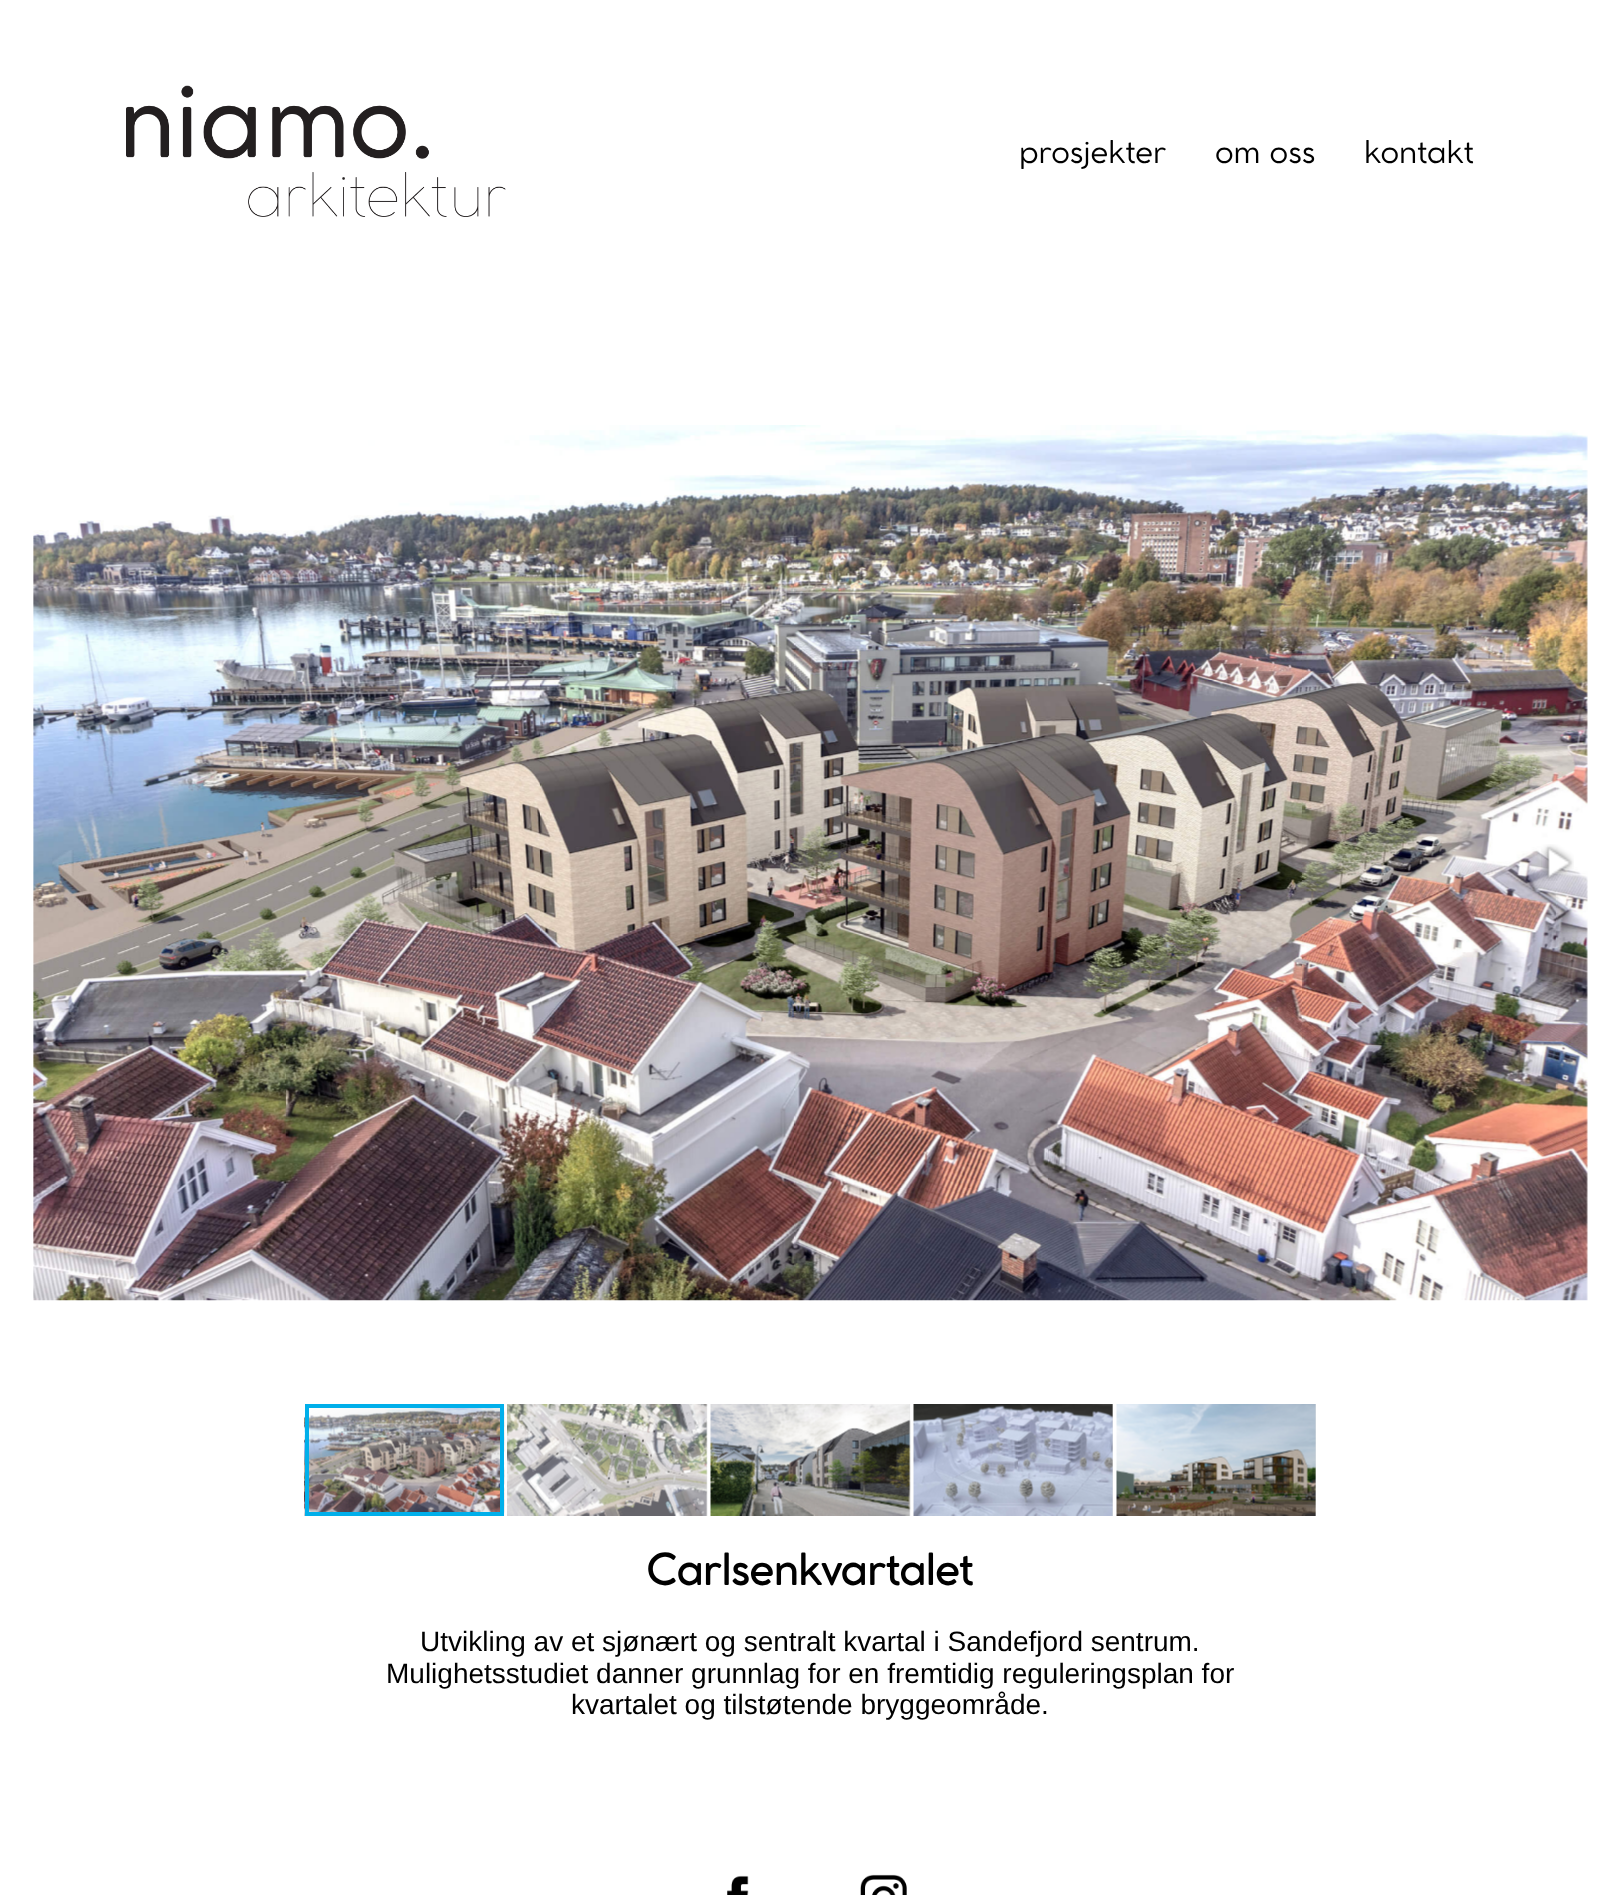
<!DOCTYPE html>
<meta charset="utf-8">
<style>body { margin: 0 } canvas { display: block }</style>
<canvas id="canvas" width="1620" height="1895"></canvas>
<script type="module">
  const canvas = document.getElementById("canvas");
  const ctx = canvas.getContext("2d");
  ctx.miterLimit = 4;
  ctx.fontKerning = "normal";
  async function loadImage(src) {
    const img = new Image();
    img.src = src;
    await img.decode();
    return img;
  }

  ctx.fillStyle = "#ffffff";
  ctx.fillRect(0, 0, 1620, 1895);
  ctx.drawImage(await loadImage("img1.png"), 126, 85, 380, 132);
  ctx.font = "31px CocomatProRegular";
  ctx.fillStyle = "#000000";
  ctx.fillText("prosjekter", 1019, 163);
  ctx.fillText("om oss", 1215, 163);
  ctx.fillText("kontakt", 1364, 163);
  ctx.drawImage(await loadImage("img2.png"), 33, 425, 1555, 876);
  ctx.drawImage(await loadImage("img3.png"), 52, 850, 22, 26);
  ctx.drawImage(await loadImage("img4.png"), 1541, 844, 33, 37);
  ctx.drawImage(await loadImage("img5.png"), 304, 1404, 201, 112);
  ctx.strokeStyle = "#00afea";
  ctx.lineWidth = 4;
  ctx.strokeRect(307, 1406, 195, 108);
  ctx.fillStyle = "#e5e5e5";
  ctx.fillRect(706, 1404, 1, 112);
  ctx.drawImage(await loadImage("img6.png"), 507, 1404, 201, 112);
  ctx.fillRect(909, 1404, 1, 112);
  ctx.drawImage(await loadImage("img7.png"), 710, 1404, 201, 112);
  ctx.fillRect(1112, 1404, 1, 112);
  ctx.drawImage(await loadImage("img8.png"), 913, 1404, 200, 112);
  ctx.fillRect(1315, 1404, 1, 112);
  ctx.drawImage(await loadImage("img9.png"), 1116, 1404, 200, 112);
  ctx.font = "bold 42px CocomatProRegular";
  ctx.fillStyle = "#000000";
  ctx.fillText("Carlsenkvartalet", 646, 1585);
  ctx.font = "28px Liberation Sans";
  ctx.fillText("Utvikling av et sjønært og sentralt kvartal i Sandefjord sentrum.", 420, 1651);
  ctx.fillText("Mulighetsstudiet danner grunnlag for en fremtidig reguleringsplan for", 386, 1683);
  ctx.fillText("kvartalet og tilstøtende bryggeområde.", 571, 1714);
  ctx.drawImage(await loadImage("img10.png"), 727, 1875, 22, 20);
  ctx.drawImage(await loadImage("img11.png"), 860, 1874, 47, 21);
</script>
